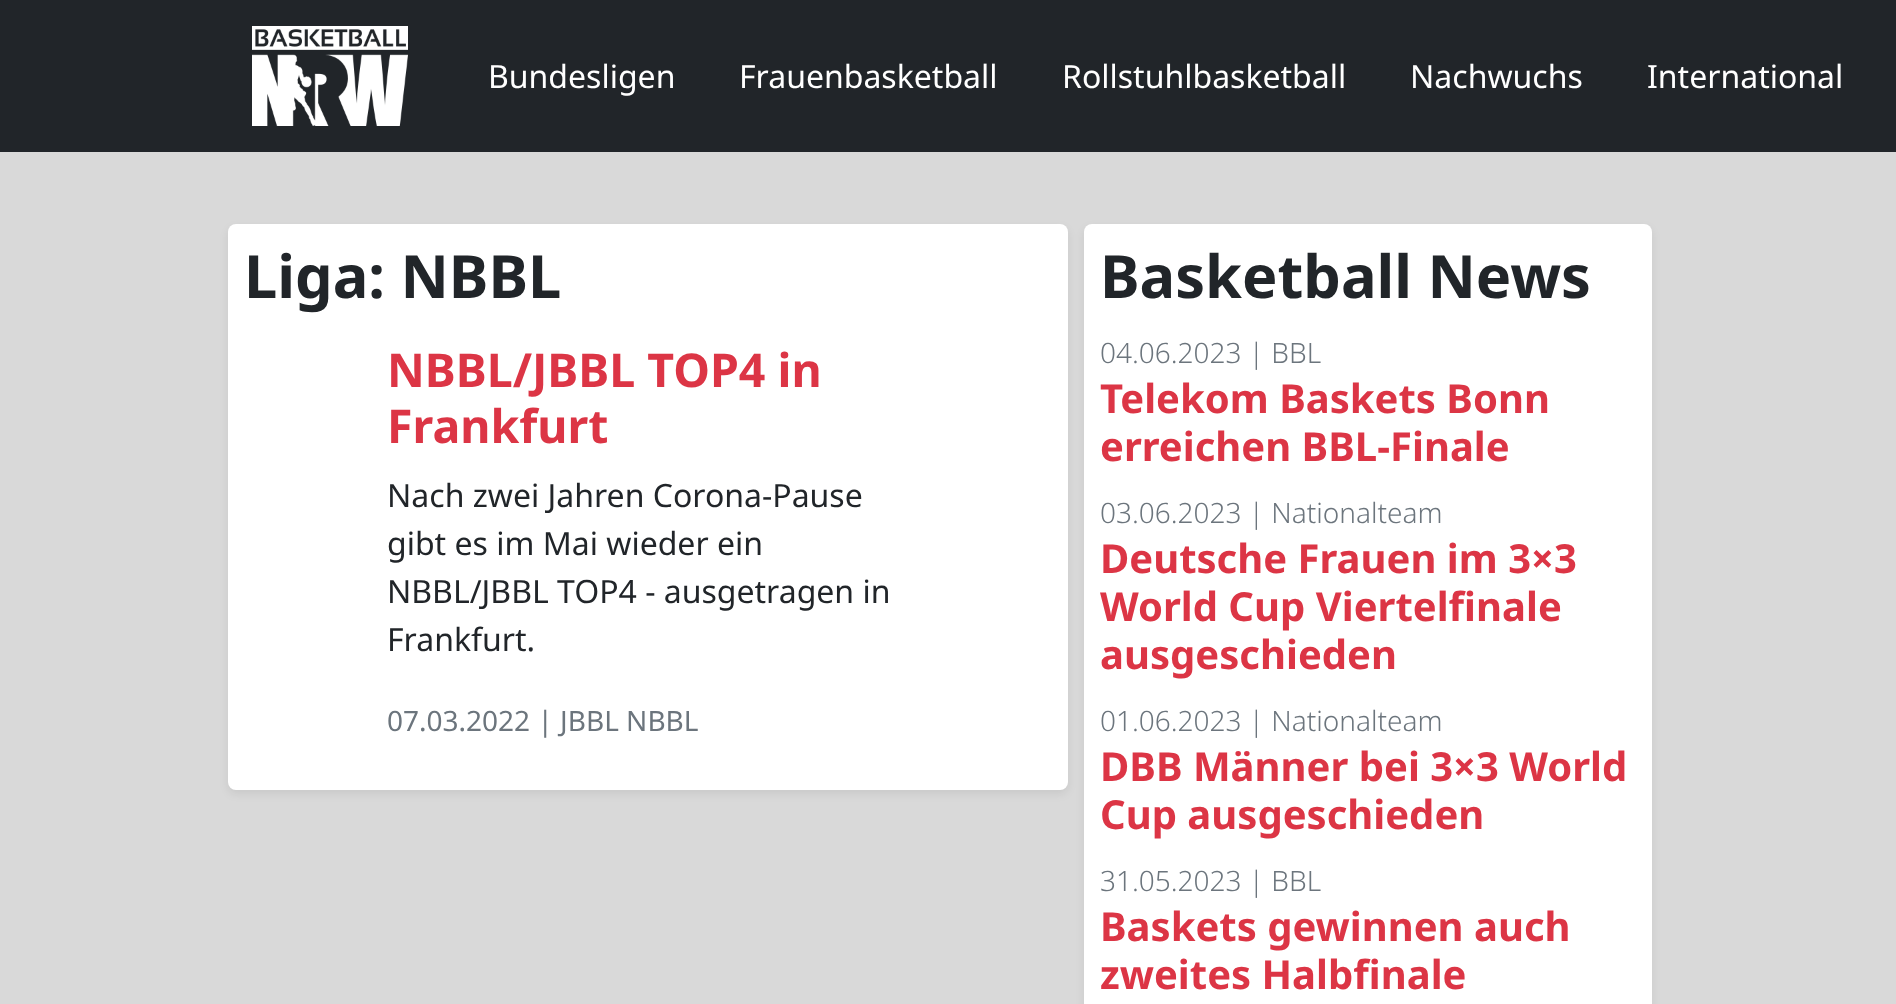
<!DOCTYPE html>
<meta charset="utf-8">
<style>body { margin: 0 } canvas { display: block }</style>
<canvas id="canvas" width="1896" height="1004"></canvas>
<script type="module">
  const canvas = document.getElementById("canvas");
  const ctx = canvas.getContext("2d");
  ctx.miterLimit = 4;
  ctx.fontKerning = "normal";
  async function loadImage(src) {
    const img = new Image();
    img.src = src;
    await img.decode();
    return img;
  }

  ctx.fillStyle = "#d9d9d9";
  ctx.fillRect(0, 0, 1896, 1004);
  ctx.fillStyle = "#212529";
  ctx.fillRect(0, 0, 1896, 152);
  ctx.drawImage(await loadImage("img1.png"), 252, 26, 156, 100);
  ctx.font = "32px Noto Sans";
  ctx.fillStyle = "#ffffff";
  ctx.fillText("Bundesligen", 488, 88);
  ctx.fillText("Frauenbasketball", 739, 88);
  ctx.fillText("Rollstuhlbasketball", 1062, 88);
  ctx.fillText("Nachwuchs", 1410, 88);
  ctx.fillText("International", 1647, 88);
  ctx.fillStyle = "rgba(0, 0, 0, 0.07)";
  ctx.filter = "blur(4px)";
  ctx.beginPath();
  ctx.roundRect(228, 228, 840, 566, 8);
  ctx.fill();
  ctx.filter = "none";
  ctx.fillStyle = "#ffffff";
  ctx.beginPath();
  ctx.roundRect(228, 224, 840, 566, 8);
  ctx.fill();
  ctx.font = "bold 59.5px Noto Sans";
  ctx.fillStyle = "#212529";
  ctx.fillText("Liga: NBBL", 244, 298);
  ctx.font = "bold 46.5px Noto Sans";
  ctx.fillStyle = "#dc3545";
  ctx.fillText("NBBL/JBBL TOP4 in", 387, 387);
  ctx.fillText("Frankfurt", 387, 443);
  ctx.font = "32px Noto Sans";
  ctx.fillStyle = "#212529";
  ctx.fillText("Nach zwei Jahren Corona-Pause", 387, 507);
  ctx.fillText("gibt es im Mai wieder ein", 387, 555);
  ctx.fillText("NBBL/JBBL TOP4 - ausgetragen in", 387, 603);
  ctx.fillText("Frankfurt.", 387, 651);
  ctx.font = "28px Noto Sans";
  ctx.fillStyle = "#6c757d";
  ctx.fillText("07.03.2022 | JBBL NBBL", 387, 731);
  ctx.fillStyle = "rgba(0, 0, 0, 0.07)";
  ctx.filter = "blur(4px)";
  ctx.beginPath();
  ctx.roundRect(1084, 228, 568, 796, 8);
  ctx.fill();
  ctx.filter = "none";
  ctx.fillStyle = "#ffffff";
  ctx.beginPath();
  ctx.roundRect(1084, 224, 568, 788, 8);
  ctx.fill();
  ctx.font = "bold 59.5px Noto Sans";
  ctx.fillStyle = "#212529";
  ctx.fillText("Basketball News", 1100, 298);
  ctx.font = "300 28px Noto Sans";
  ctx.fillStyle = "#6c757d";
  ctx.fillText("04.06.2023 | BBL", 1100, 363);
  ctx.font = "bold 40px Noto Sans";
  ctx.fillStyle = "#dc3545";
  ctx.fillText("Telekom Baskets Bonn", 1100, 413);
  ctx.fillText("erreichen BBL-Finale", 1100, 461);
  ctx.font = "300 28px Noto Sans";
  ctx.fillStyle = "#6c757d";
  ctx.fillText("03.06.2023 | Nationalteam", 1100, 523);
  ctx.font = "bold 40px Noto Sans";
  ctx.fillStyle = "#dc3545";
  ctx.fillText("Deutsche Frauen im 3×3", 1100, 573);
  ctx.fillText("World Cup Viertelfinale", 1100, 621);
  ctx.fillText("ausgeschieden", 1100, 669);
  ctx.font = "300 28px Noto Sans";
  ctx.fillStyle = "#6c757d";
  ctx.fillText("01.06.2023 | Nationalteam", 1100, 731);
  ctx.font = "bold 40px Noto Sans";
  ctx.fillStyle = "#dc3545";
  ctx.fillText("DBB Männer bei 3×3 World", 1100, 781);
  ctx.fillText("Cup ausgeschieden", 1100, 829);
  ctx.font = "300 28px Noto Sans";
  ctx.fillStyle = "#6c757d";
  ctx.fillText("31.05.2023 | BBL", 1100, 891);
  ctx.font = "bold 40px Noto Sans";
  ctx.fillStyle = "#dc3545";
  ctx.fillText("Baskets gewinnen auch", 1100, 941);
  ctx.fillText("zweites Halbfinale", 1100, 989);
</script>
